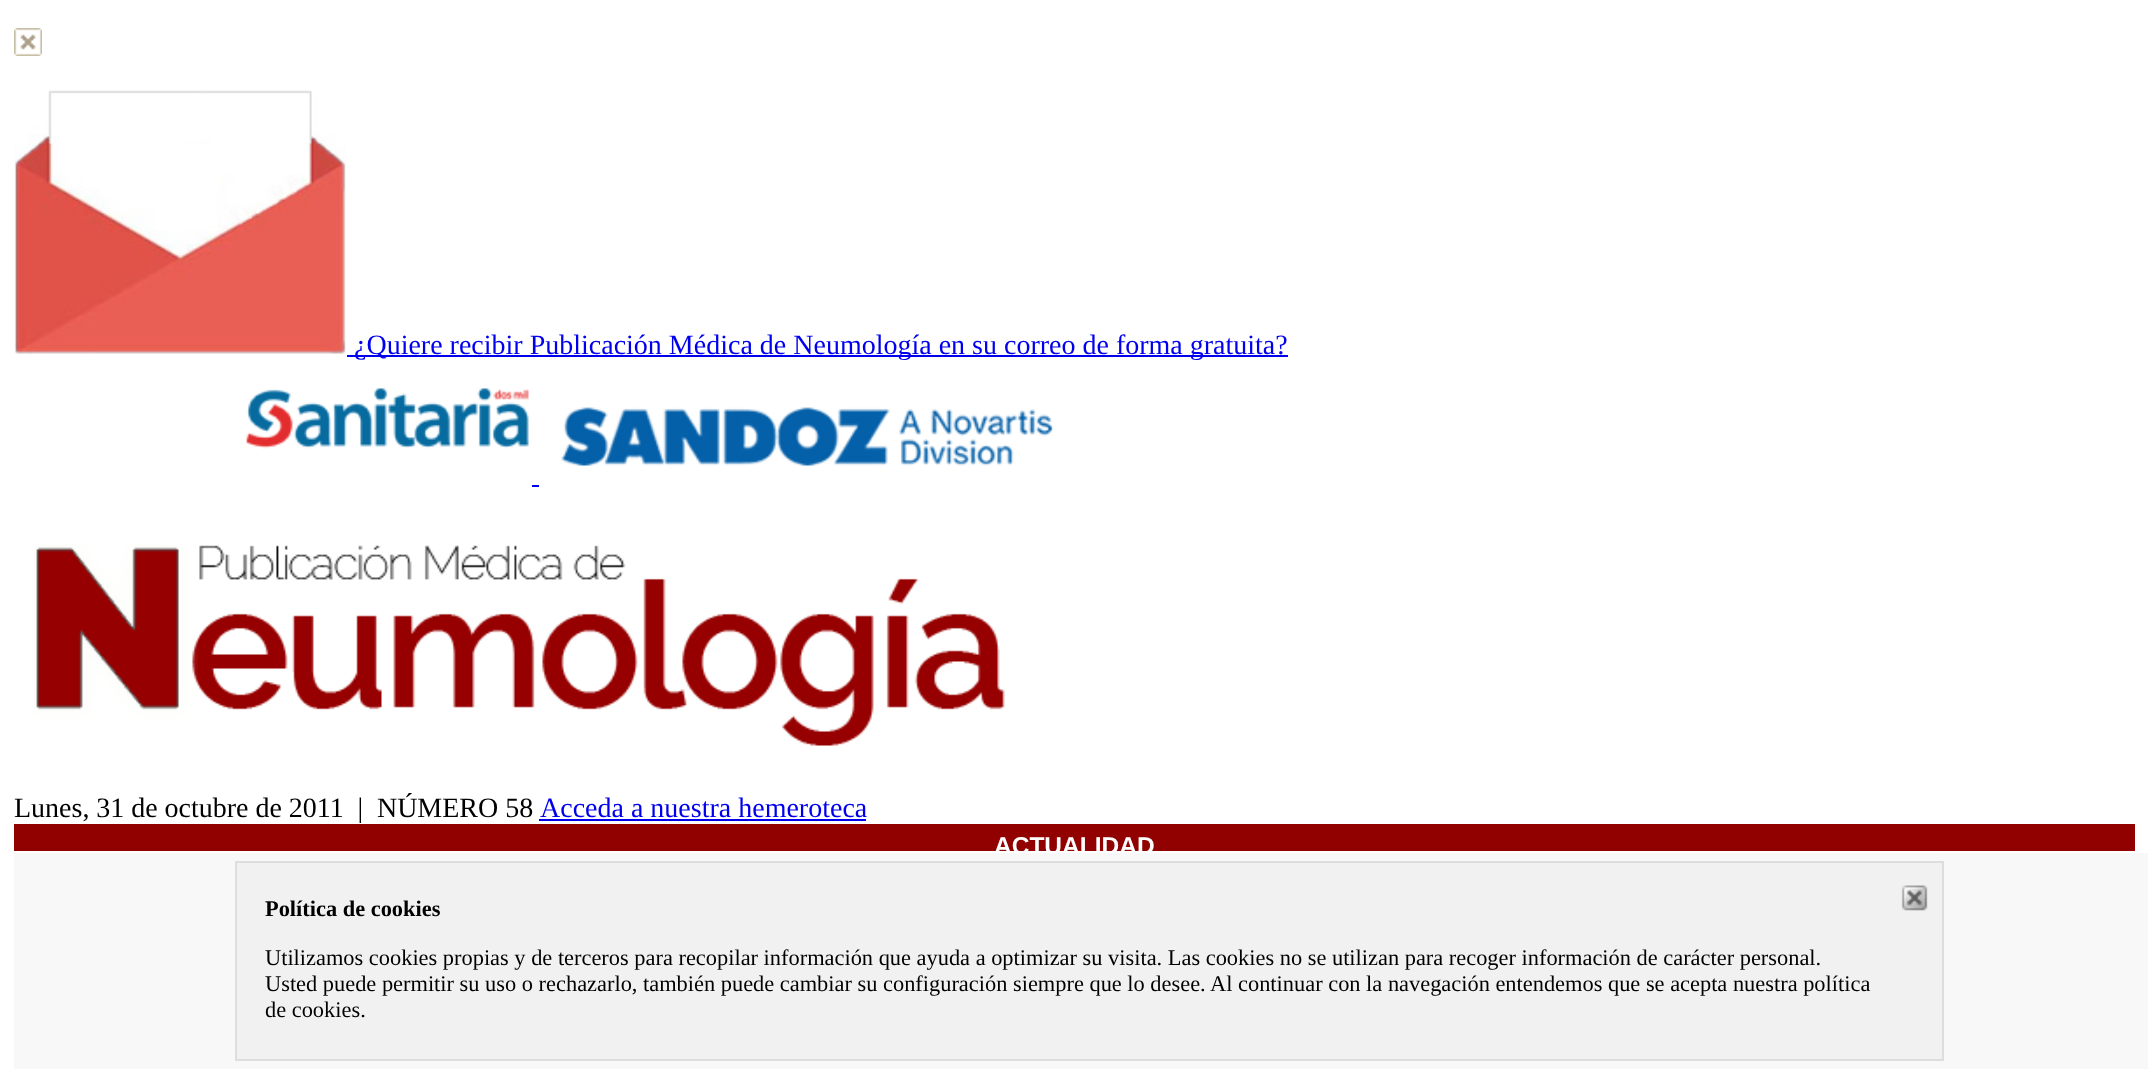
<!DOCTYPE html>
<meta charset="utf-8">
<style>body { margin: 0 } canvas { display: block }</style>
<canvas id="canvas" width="2148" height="1069"></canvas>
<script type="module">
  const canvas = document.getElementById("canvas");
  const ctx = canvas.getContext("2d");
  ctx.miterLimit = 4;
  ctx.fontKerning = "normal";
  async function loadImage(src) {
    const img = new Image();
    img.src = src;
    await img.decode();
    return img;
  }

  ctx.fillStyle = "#ffffff";
  ctx.fillRect(0, 0, 2148, 1069);
  ctx.drawImage(await loadImage("img1.png"), 14, 28, 28, 28);
  ctx.drawImage(await loadImage("img2.png"), 14, 90, 332, 264);
  ctx.fillStyle = "#0000ee";
  ctx.fillRect(347, 355, 941, 2);
  ctx.font = "28px Liberation Serif";
  ctx.fillText("¿Quiere recibir Publicación Médica de Neumología en su correo de forma gratuita?", 354, 354);
  ctx.drawImage(await loadImage("img3.png"), 246, 388, 283, 61);
  ctx.drawImage(await loadImage("img4.png"), 561, 407, 492, 59);
  ctx.fillRect(532, 485, 7, 2);
  ctx.drawImage(await loadImage("img5.png"), 33, 544, 972, 202);
  ctx.wordSpacing = "-0.1px";
  ctx.fillStyle = "#000000";
  ctx.fillText("Lunes, 31 de octubre de 2011  |  NÚMERO 58", 14, 817);
  ctx.wordSpacing = "0px";
  ctx.fillStyle = "#0000ee";
  ctx.fillText("Acceda a nuestra hemeroteca", 540, 817);
  ctx.fillRect(539, 819, 327, 2);
  ctx.fillStyle = "#900100";
  ctx.fillRect(14, 824, 2121, 27);
  ctx.font = "bold 24.5px Liberation Sans";
  ctx.fillStyle = "#ffffff";
  ctx.fillText("ACTUALIDAD", 994, 854);
  ctx.fillStyle = "#f8f8f8";
  ctx.fillRect(14, 853, 2134, 216);
  ctx.fillStyle = "#f1f1f1";
  ctx.beginPath();
  ctx.rect(236, 862, 1707, 198);
  ctx.fill();
  ctx.strokeStyle = "#dddddd";
  ctx.lineWidth = 2;
  ctx.stroke();
  ctx.font = "bold 22.4px Liberation Serif";
  ctx.fillStyle = "#000000";
  ctx.fillText("Política de cookies", 265, 916);
  ctx.drawImage(await loadImage("img6.png"), 1901, 885, 27, 26);
  ctx.font = "22.4px Liberation Serif";
  ctx.fillText("Utilizamos cookies propias y de terceros para recopilar información que ayuda a optimizar su visita. Las cookies no se utilizan para recoger información de carácter personal.", 265, 965);
  ctx.fillText("Usted puede permitir su uso o rechazarlo, también puede cambiar su configuración siempre que lo desee. Al continuar con la navegación entendemos que se acepta nuestra política", 265, 991);
  ctx.fillText("de cookies.", 265, 1017);
</script>
